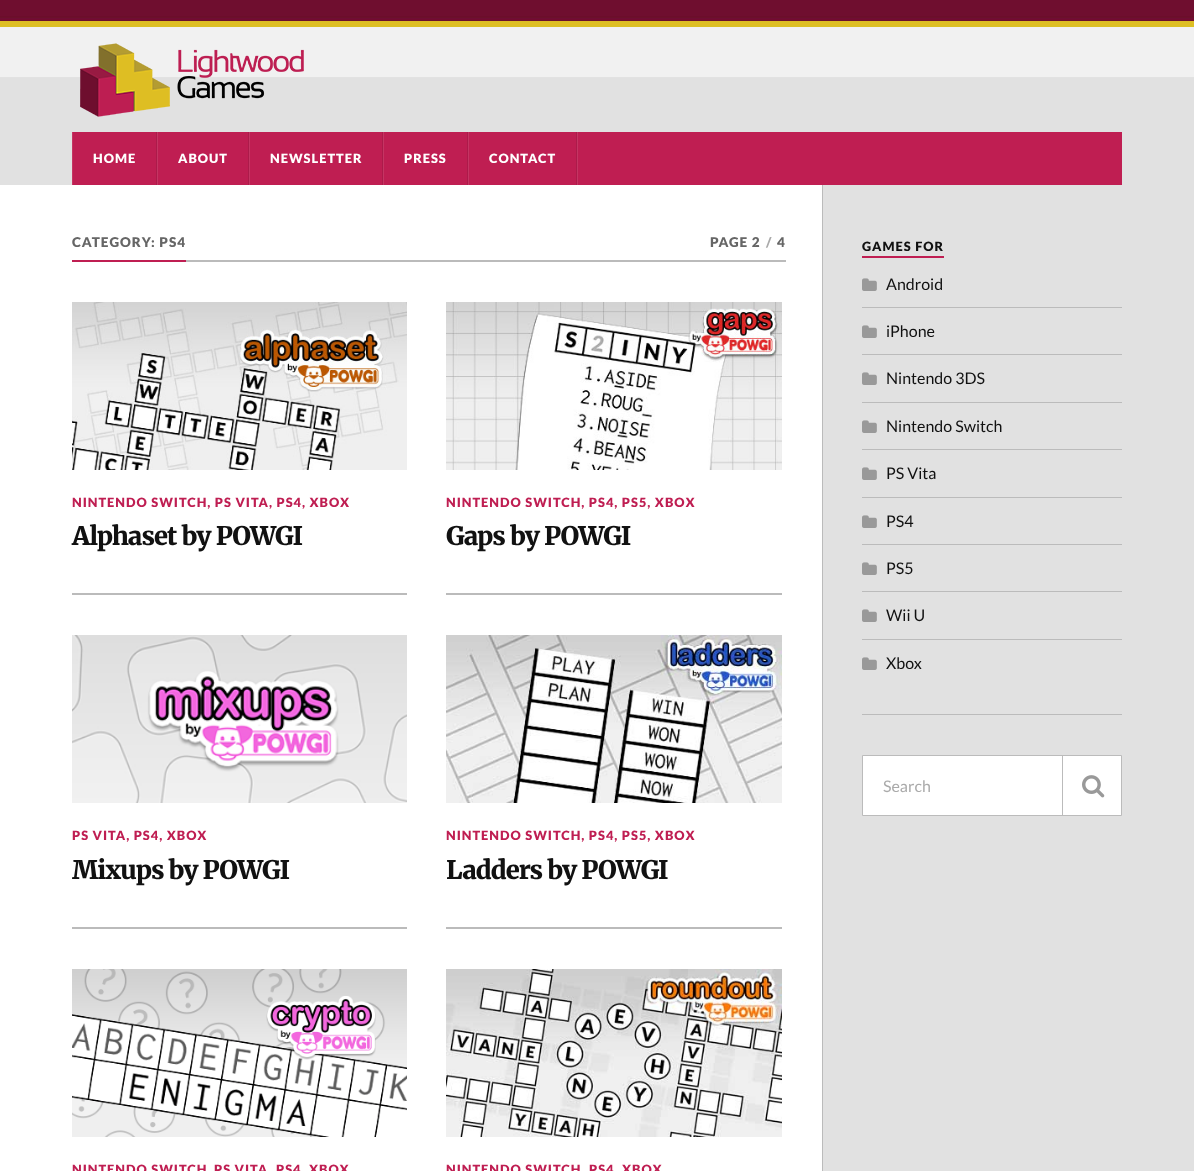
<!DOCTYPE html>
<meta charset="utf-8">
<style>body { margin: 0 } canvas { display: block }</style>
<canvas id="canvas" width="1194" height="1171"></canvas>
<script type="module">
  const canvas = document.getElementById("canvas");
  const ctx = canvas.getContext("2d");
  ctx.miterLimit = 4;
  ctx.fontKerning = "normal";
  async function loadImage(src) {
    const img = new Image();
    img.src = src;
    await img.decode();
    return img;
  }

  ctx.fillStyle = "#e1e1e1";
  ctx.fillRect(0, 0, 1194, 1171);
  ctx.drawImage(await loadImage("img1.png"), 0, 0, 1194, 185);
  ctx.drawImage(await loadImage("img2.png"), 80, 43, 224, 74);
  ctx.fillStyle = "#bf1e52";
  ctx.fillRect(73, 132, 1049, 53);
  ctx.fillStyle = "#ac1b4a";
  ctx.fillRect(156, 132, 1, 53);
  ctx.fillStyle = "#c53563";
  ctx.fillRect(72, 132, 1, 53);
  ctx.letterSpacing = "1px";
  ctx.font = "900 12.8px Lato";
  ctx.fillStyle = "#ffffff";
  ctx.fillText("HOME", 93, 163);
  ctx.fillStyle = "#ac1b4a";
  ctx.fillRect(248, 132, 1, 53);
  ctx.fillStyle = "#c53563";
  ctx.fillRect(157, 132, 1, 53);
  ctx.fillStyle = "#ffffff";
  ctx.fillText("ABOUT", 178, 163);
  ctx.fillStyle = "#ac1b4a";
  ctx.fillRect(382, 132, 1, 53);
  ctx.fillStyle = "#c53563";
  ctx.fillRect(249, 132, 1, 53);
  ctx.fillStyle = "#ffffff";
  ctx.fillText("NEWSLETTER", 270, 163);
  ctx.fillStyle = "#ac1b4a";
  ctx.fillRect(467, 132, 1, 53);
  ctx.fillStyle = "#c53563";
  ctx.fillRect(383, 132, 1, 53);
  ctx.fillStyle = "#ffffff";
  ctx.fillText("PRESS", 404, 163);
  ctx.fillStyle = "#ac1b4a";
  ctx.fillRect(576, 132, 1, 53);
  ctx.fillStyle = "#c53563";
  ctx.fillRect(468, 132, 1, 53);
  ctx.fillStyle = "#ffffff";
  ctx.fillText("CONTACT", 489, 163);
  ctx.fillStyle = "#c53563";
  ctx.fillRect(577, 132, 1, 53);
  ctx.fillStyle = "#ffffff";
  ctx.fillRect(0, 185, 822, 986);
  ctx.fillStyle = "#bbbbbb";
  ctx.fillRect(186, 260, 600, 2);
  ctx.fillStyle = "#bf1e52";
  ctx.fillRect(72, 260, 114, 2);
  ctx.font = "900 13.5px Lato";
  ctx.fillStyle = "#666666";
  ctx.fillText("CATEGORY: PS4", 72, 247);
  ctx.fillText("PAGE 2", 710, 247);
  ctx.fillStyle = "#aaaaaa";
  ctx.fillText("/", 766, 247);
  ctx.fillStyle = "#666666";
  ctx.fillText("4", 777, 247);
  ctx.drawImage(await loadImage("img3.png"), 72, 302, 335, 168);
  ctx.font = "900 12.8px Lato";
  ctx.fillStyle = "#bf1e52";
  ctx.fillText("NINTENDO SWITCH, PS VITA, PS4, XBOX", 72, 507);
  ctx.letterSpacing = "-1px";
  ctx.font = "900 25.5px Merriweather";
  ctx.fillStyle = "#111111";
  ctx.fillText("Alphaset by POWGI", 72, 545);
  ctx.drawImage(await loadImage("img4.png"), 446, 302, 336, 168);
  ctx.letterSpacing = "1px";
  ctx.font = "900 12.8px Lato";
  ctx.fillStyle = "#bf1e52";
  ctx.fillText("NINTENDO SWITCH, PS4, PS5, XBOX", 446, 507);
  ctx.letterSpacing = "-1px";
  ctx.font = "900 25.5px Merriweather";
  ctx.fillStyle = "#111111";
  ctx.fillText("Gaps by POWGI", 446, 545);
  ctx.fillStyle = "#bbbbbb";
  ctx.fillRect(72, 593, 335, 2);
  ctx.drawImage(await loadImage("img5.png"), 72, 635, 335, 168);
  ctx.letterSpacing = "1px";
  ctx.font = "900 12.8px Lato";
  ctx.fillStyle = "#bf1e52";
  ctx.fillText("PS VITA, PS4, XBOX", 72, 840);
  ctx.letterSpacing = "-1px";
  ctx.font = "900 25.5px Merriweather";
  ctx.fillStyle = "#111111";
  ctx.fillText("Mixups by POWGI", 72, 879);
  ctx.fillStyle = "#bbbbbb";
  ctx.fillRect(446, 593, 336, 2);
  ctx.drawImage(await loadImage("img6.png"), 446, 635, 336, 168);
  ctx.letterSpacing = "1px";
  ctx.font = "900 12.8px Lato";
  ctx.fillStyle = "#bf1e52";
  ctx.fillText("NINTENDO SWITCH, PS4, PS5, XBOX", 446, 840);
  ctx.letterSpacing = "-1px";
  ctx.font = "900 25.5px Merriweather";
  ctx.fillStyle = "#111111";
  ctx.fillText("Ladders by POWGI", 446, 879);
  ctx.fillStyle = "#bbbbbb";
  ctx.fillRect(72, 927, 335, 2);
  ctx.drawImage(await loadImage("img7.png"), 72, 969, 335, 168);
  ctx.letterSpacing = "1px";
  ctx.font = "900 12.8px Lato";
  ctx.fillStyle = "#bf1e52";
  ctx.fillText("NINTENDO SWITCH", 72, 1174);
  ctx.fillText("PS VITA", 214, 1174);
  ctx.fillText("PS4", 276, 1174);
  ctx.fillText("XBOX", 309, 1174);
  ctx.fillStyle = "#bbbbbb";
  ctx.fillRect(446, 927, 336, 2);
  ctx.drawImage(await loadImage("img8.png"), 446, 969, 336, 168);
  ctx.fillStyle = "#bf1e52";
  ctx.fillText("NINTENDO SWITCH", 446, 1174);
  ctx.fillText("PS4", 589, 1174);
  ctx.fillText("XBOX", 622, 1174);
  ctx.fillStyle = "#bbbbbb";
  ctx.fillRect(822, 185, 1, 986);
  ctx.fillStyle = "#bf1e52";
  ctx.fillRect(862, 256, 82, 2);
  ctx.fillStyle = "#111111";
  ctx.fillText("GAMES FOR", 862, 251);
  ctx.fillStyle = "#bbbbbb";
  ctx.fillRect(862, 307, 260, 1);
  ctx.drawImage(await loadImage("img9.png"), 862, 278, 15, 13);
  ctx.letterSpacing = "0px";
  ctx.font = "16px Lato";
  ctx.fillStyle = "#111111";
  ctx.fillText("Android", 886, 290);
  ctx.fillStyle = "#bbbbbb";
  ctx.fillRect(862, 354, 260, 1);
  ctx.drawImage(await loadImage("img9.png"), 862, 325, 15, 13);
  ctx.fillStyle = "#111111";
  ctx.fillText("iPhone", 886, 337);
  ctx.fillStyle = "#bbbbbb";
  ctx.fillRect(862, 402, 260, 1);
  ctx.drawImage(await loadImage("img9.png"), 862, 372, 15, 13);
  ctx.fillStyle = "#111111";
  ctx.fillText("Nintendo 3DS", 886, 384);
  ctx.fillStyle = "#bbbbbb";
  ctx.fillRect(862, 449, 260, 1);
  ctx.drawImage(await loadImage("img9.png"), 862, 420, 15, 13);
  ctx.fillStyle = "#111111";
  ctx.fillText("Nintendo Switch", 886, 432);
  ctx.fillStyle = "#bbbbbb";
  ctx.fillRect(862, 497, 260, 1);
  ctx.drawImage(await loadImage("img9.png"), 862, 467, 15, 13);
  ctx.fillStyle = "#111111";
  ctx.fillText("PS Vita", 886, 479);
  ctx.fillStyle = "#bbbbbb";
  ctx.fillRect(862, 544, 260, 1);
  ctx.drawImage(await loadImage("img9.png"), 862, 515, 15, 13);
  ctx.fillStyle = "#111111";
  ctx.fillText("PS4", 886, 527);
  ctx.fillStyle = "#bbbbbb";
  ctx.fillRect(862, 591, 260, 1);
  ctx.drawImage(await loadImage("img9.png"), 862, 562, 15, 13);
  ctx.fillStyle = "#111111";
  ctx.fillText("PS5", 886, 574);
  ctx.fillStyle = "#bbbbbb";
  ctx.fillRect(862, 639, 260, 1);
  ctx.drawImage(await loadImage("img9.png"), 862, 609, 15, 13);
  ctx.fillStyle = "#111111";
  ctx.fillText("Wii U", 886, 621);
  ctx.drawImage(await loadImage("img9.png"), 862, 657, 15, 13);
  ctx.fillText("Xbox", 886, 669);
  ctx.fillStyle = "#bbbbbb";
  ctx.fillRect(862, 714, 260, 1);
  ctx.fillStyle = "#ffffff";
  ctx.beginPath();
  ctx.rect(862.5, 755.5, 259, 60);
  ctx.fill();
  ctx.strokeStyle = "#bbbbbb";
  ctx.stroke();
  ctx.fillStyle = "#aaaaaa";
  ctx.fillText("Search", 883, 792);
  ctx.fillStyle = "#bbbbbb";
  ctx.fillRect(1062, 755, 1, 61);
  ctx.drawImage(await loadImage("img10.png"), 1082, 775, 23, 23);
</script>
